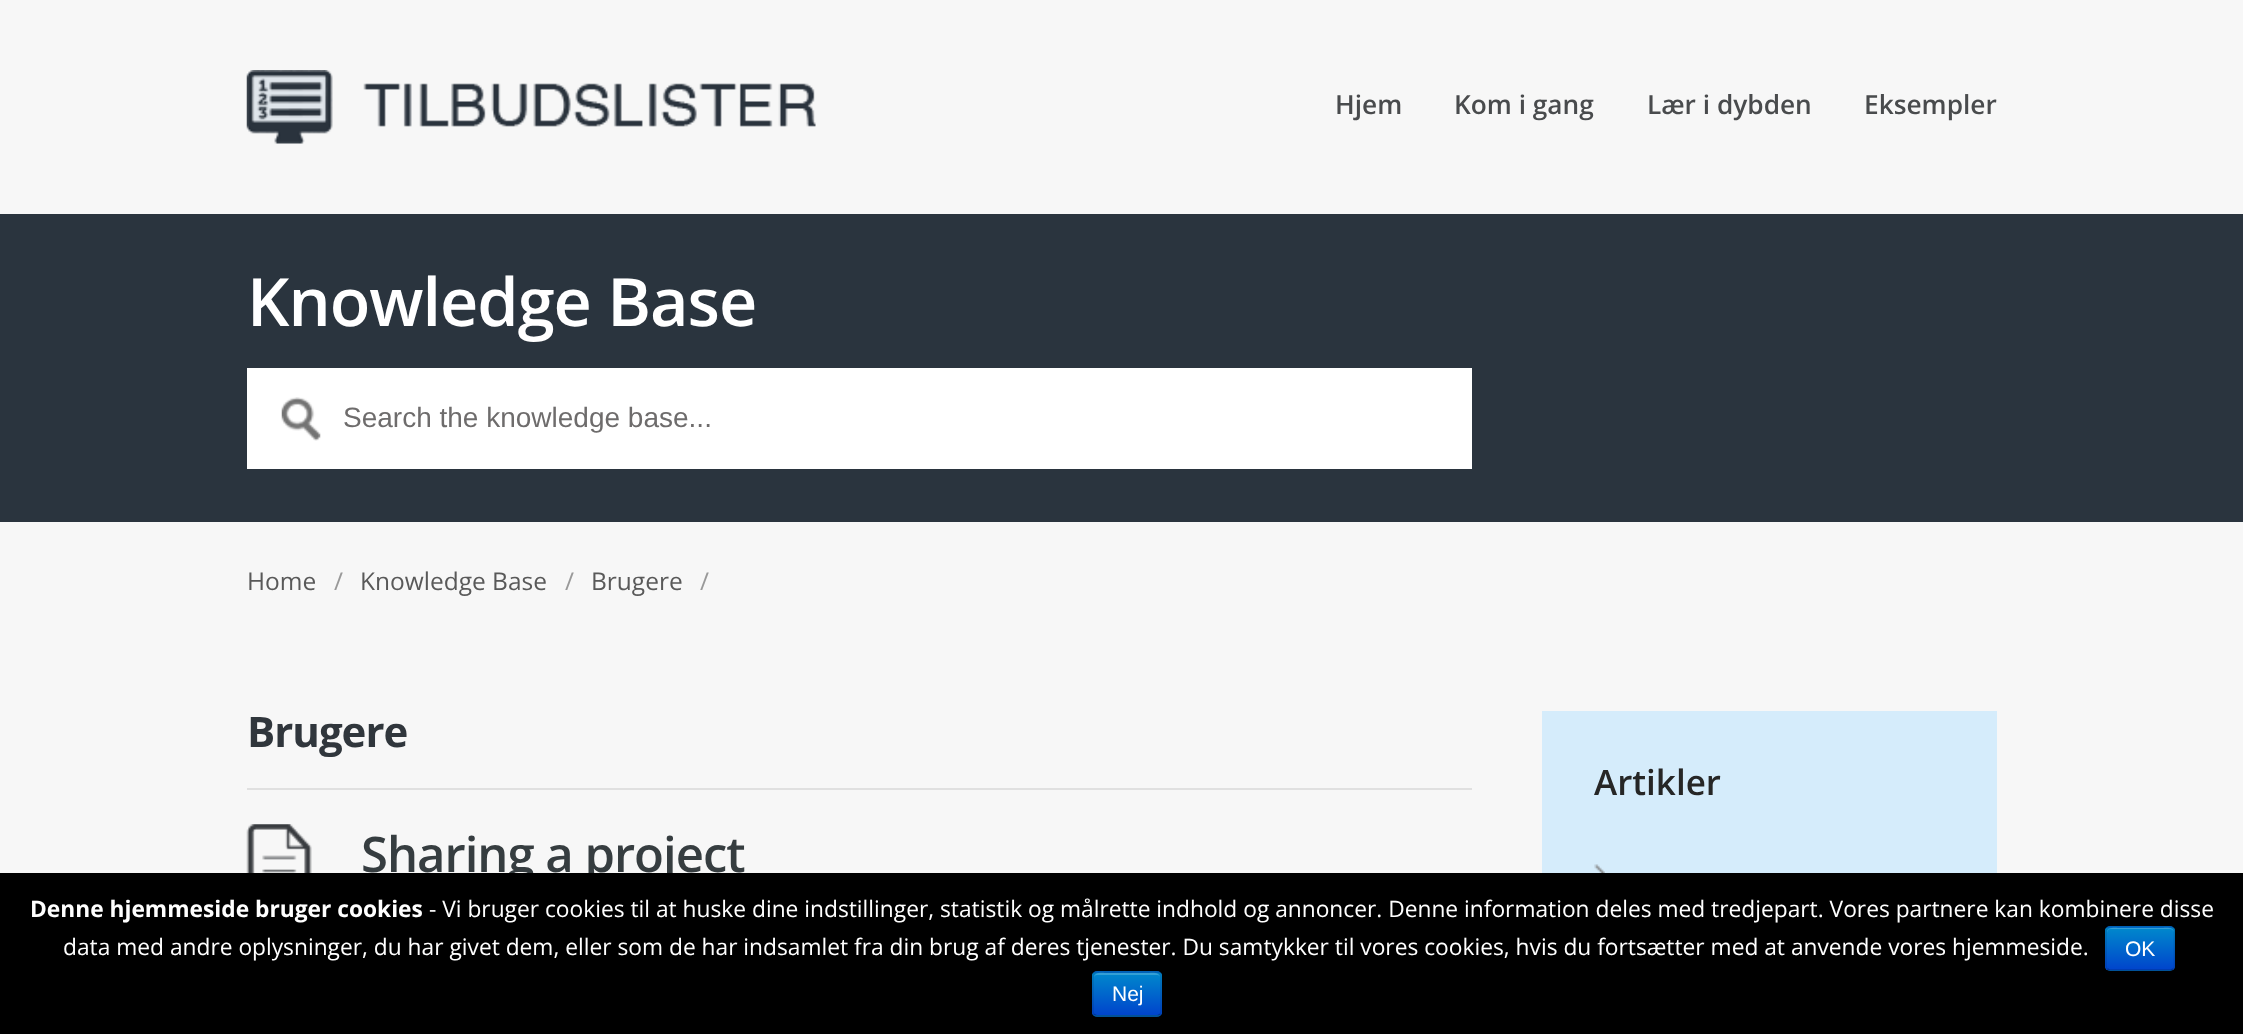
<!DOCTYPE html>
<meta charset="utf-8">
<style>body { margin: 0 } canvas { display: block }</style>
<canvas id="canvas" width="2243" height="1034"></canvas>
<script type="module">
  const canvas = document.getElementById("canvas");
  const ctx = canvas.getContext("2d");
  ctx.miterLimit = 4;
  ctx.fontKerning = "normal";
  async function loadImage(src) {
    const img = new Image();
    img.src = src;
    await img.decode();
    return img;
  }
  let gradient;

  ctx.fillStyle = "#f7f7f7";
  ctx.fillRect(0, 0, 2243, 1034);
  ctx.drawImage(await loadImage("img1.png"), 246, 70, 570, 74);
  ctx.font = "600 26.25px Open Sans";
  ctx.fillStyle = "#494b4d";
  ctx.fillText("Hjem", 1335, 114);
  ctx.fillText("Kom i gang", 1454, 114);
  ctx.fillText("Lær i dybden", 1647, 114);
  ctx.fillText("Eksempler", 1864, 114);
  ctx.fillStyle = "#2a343e";
  ctx.fillRect(0, 214, 2243, 308);
  ctx.letterSpacing = "-1px";
  ctx.font = "600 66.5px Open Sans";
  ctx.fillStyle = "#ffffff";
  ctx.fillText("Knowledge Base", 247, 326);
  ctx.fillRect(247, 368, 1225, 101);
  ctx.drawImage(await loadImage("img2.png"), 281, 397, 40, 44);
  ctx.letterSpacing = "0px";
  ctx.font = "28px Liberation Sans";
  ctx.fillStyle = "#6e6c6c";
  ctx.fillText("Search the knowledge base...", 343, 427);
  ctx.font = "24.5px Open Sans";
  ctx.fillStyle = "#595959";
  ctx.fillText("Home", 247, 590);
  ctx.fillStyle = "#999999";
  ctx.fillText("/", 334, 590);
  ctx.fillStyle = "#595959";
  ctx.fillText("Knowledge Base", 360, 590);
  ctx.fillStyle = "#999999";
  ctx.fillText("/", 565, 590);
  ctx.fillStyle = "#595959";
  ctx.fillText("Brugere", 591, 590);
  ctx.fillStyle = "#999999";
  ctx.fillText("/", 700, 590);
  ctx.fillStyle = "#e0e0e0";
  ctx.fillRect(247, 788, 1225, 2);
  ctx.letterSpacing = "-1px";
  ctx.font = "bold 42px Open Sans";
  ctx.fillStyle = "#30363c";
  ctx.fillText("Brugere", 247, 747);
  ctx.drawImage(await loadImage("img3.png"), 246, 824, 66, 49);
  ctx.font = "600 49px Open Sans";
  ctx.fillStyle = "#363d40";
  ctx.fillText("Sharing a project", 361, 872);
  ctx.fillStyle = "#d5ecfb";
  ctx.fillRect(1542, 711, 455, 162);
  ctx.letterSpacing = "0px";
  ctx.font = "600 35px Open Sans";
  ctx.fillStyle = "#262626";
  ctx.fillText("Artikler", 1594, 795);
  ctx.drawImage(await loadImage("img4.png"), 1594, 864, 11, 9);
  ctx.fillStyle = "#000000";
  ctx.fillRect(0, 873, 2243, 161);
  ctx.font = "bold 22.75px Open Sans";
  ctx.fillStyle = "#ffffff";
  ctx.fillText("Denne hjemmeside bruger cookies", 30, 917);
  ctx.font = "22.75px Open Sans";
  ctx.fillText("- Vi bruger cookies til at huske dine indstillinger, statistik og målrette indhold og annoncer. Denne information deles med tredjepart. Vores partnere kan kombinere disse", 429, 917);
  ctx.fillText("data med andre oplysninger, du har givet dem, eller som de har indsamlet fra din brug af deres tjenester. Du samtykker til vores cookies, hvis du fortsætter med at anvende vores hjemmeside.", 63, 955);
  ctx.fillStyle = "#006dcc";
  ctx.beginPath();
  ctx.roundRect(2105, 926, 70, 45, 5);
  ctx.fill();
  ctx.save();
  ctx.beginPath();
  ctx.roundRect(2105, 926, 70, 45, 5);
  ctx.clip();
  gradient = ctx.createLinearGradient(2140, 928, 2140, 970);
  gradient.addColorStop(0, "#0088cc");
  gradient.addColorStop(1, "#0044cc");
  ctx.fillStyle = gradient;
  ctx.fillRect(2105, 928, 70, 42);
  ctx.restore();
  ctx.fillStyle = "#339fd6";
  ctx.beginPath();
  ctx.moveTo(2110, 929);
  ctx.lineTo(2170, 929);
  ctx.bezierCurveTo(2172, 929, 2174, 931, 2174, 933);
  ctx.bezierCurveTo(2174, 926, 2165, 928, 2160, 928);
  ctx.lineTo(2121, 928);
  ctx.bezierCurveTo(2116, 928, 2107, 926, 2107, 933);
  ctx.bezierCurveTo(2107, 931, 2109, 929, 2110, 929);
  ctx.closePath();
  ctx.fill();
  ctx.beginPath();
  ctx.moveTo(2173, 969);
  ctx.lineTo(2170.5, 970.5);
  ctx.lineTo(2110, 970.5);
  ctx.lineTo(2107.5, 969);
  ctx.strokeStyle = "rgba(0, 0, 0, 0.25)";
  ctx.lineWidth = 1.8;
  ctx.stroke();
  ctx.beginPath();
  ctx.moveTo(2107.5, 969);
  ctx.bezierCurveTo(2106.5, 968.5, 2106, 967, 2106, 966);
  ctx.lineTo(2106, 931);
  ctx.bezierCurveTo(2106, 930, 2106.5, 928.5, 2107.5, 928);
  ctx.bezierCurveTo(2108, 927, 2109.5, 926.5, 2110.5, 926.5);
  ctx.lineTo(2170, 926.5);
  ctx.bezierCurveTo(2171, 926.5, 2172.5, 927, 2173, 928);
  ctx.bezierCurveTo(2174, 928.5, 2174.5, 930, 2174.5, 931);
  ctx.lineTo(2174.5, 966);
  ctx.bezierCurveTo(2174.5, 967, 2174, 968.5, 2173, 969);
  ctx.strokeStyle = "rgba(0, 0, 0, 0.1)";
  ctx.stroke();
  ctx.font = "21px Liberation Sans";
  ctx.fillStyle = "#ffffff";
  ctx.fillText("OK", 2125, 956);
  ctx.fillStyle = "#006dcc";
  ctx.beginPath();
  ctx.roundRect(1092, 971, 70, 46, 5);
  ctx.fill();
  ctx.save();
  ctx.beginPath();
  ctx.roundRect(1092, 971, 70, 46, 5);
  ctx.clip();
  gradient = ctx.createLinearGradient(1127, 973, 1127, 1015);
  gradient.addColorStop(0, "#0088cc");
  gradient.addColorStop(1, "#0044cc");
  ctx.fillStyle = gradient;
  ctx.fillRect(1092, 973, 70, 42);
  ctx.restore();
  ctx.fillStyle = "#339fd6";
  ctx.beginPath();
  ctx.moveTo(1097, 975);
  ctx.lineTo(1157, 975);
  ctx.bezierCurveTo(1159, 975, 1160, 976, 1160, 978);
  ctx.bezierCurveTo(1160, 971, 1151, 973, 1146, 973);
  ctx.lineTo(1108, 973);
  ctx.bezierCurveTo(1103, 973, 1094, 971, 1094, 978);
  ctx.bezierCurveTo(1094, 976, 1095, 975, 1097, 975);
  ctx.closePath();
  ctx.fill();
  ctx.beginPath();
  ctx.moveTo(1160, 1014.5);
  ctx.lineTo(1157, 1016);
  ctx.lineTo(1097, 1016);
  ctx.lineTo(1094, 1014.5);
  ctx.strokeStyle = "rgba(0, 0, 0, 0.25)";
  ctx.stroke();
  ctx.beginPath();
  ctx.moveTo(1094, 1014.5);
  ctx.bezierCurveTo(1093.5, 1014, 1093, 1012.5, 1093, 1011.5);
  ctx.lineTo(1093, 976.5);
  ctx.bezierCurveTo(1093, 975.5, 1093.5, 974, 1094, 973.5);
  ctx.bezierCurveTo(1095, 972.5, 1096, 972, 1097, 972);
  ctx.lineTo(1157, 972);
  ctx.bezierCurveTo(1158, 972, 1159, 972.5, 1160, 973.5);
  ctx.bezierCurveTo(1160.5, 974, 1161, 975.5, 1161, 976.5);
  ctx.lineTo(1161, 1011.5);
  ctx.bezierCurveTo(1161, 1012.5, 1160.5, 1014, 1160, 1014.5);
  ctx.strokeStyle = "rgba(0, 0, 0, 0.1)";
  ctx.stroke();
  ctx.fillStyle = "#ffffff";
  ctx.fillText("Nej", 1112, 1001);
</script>
